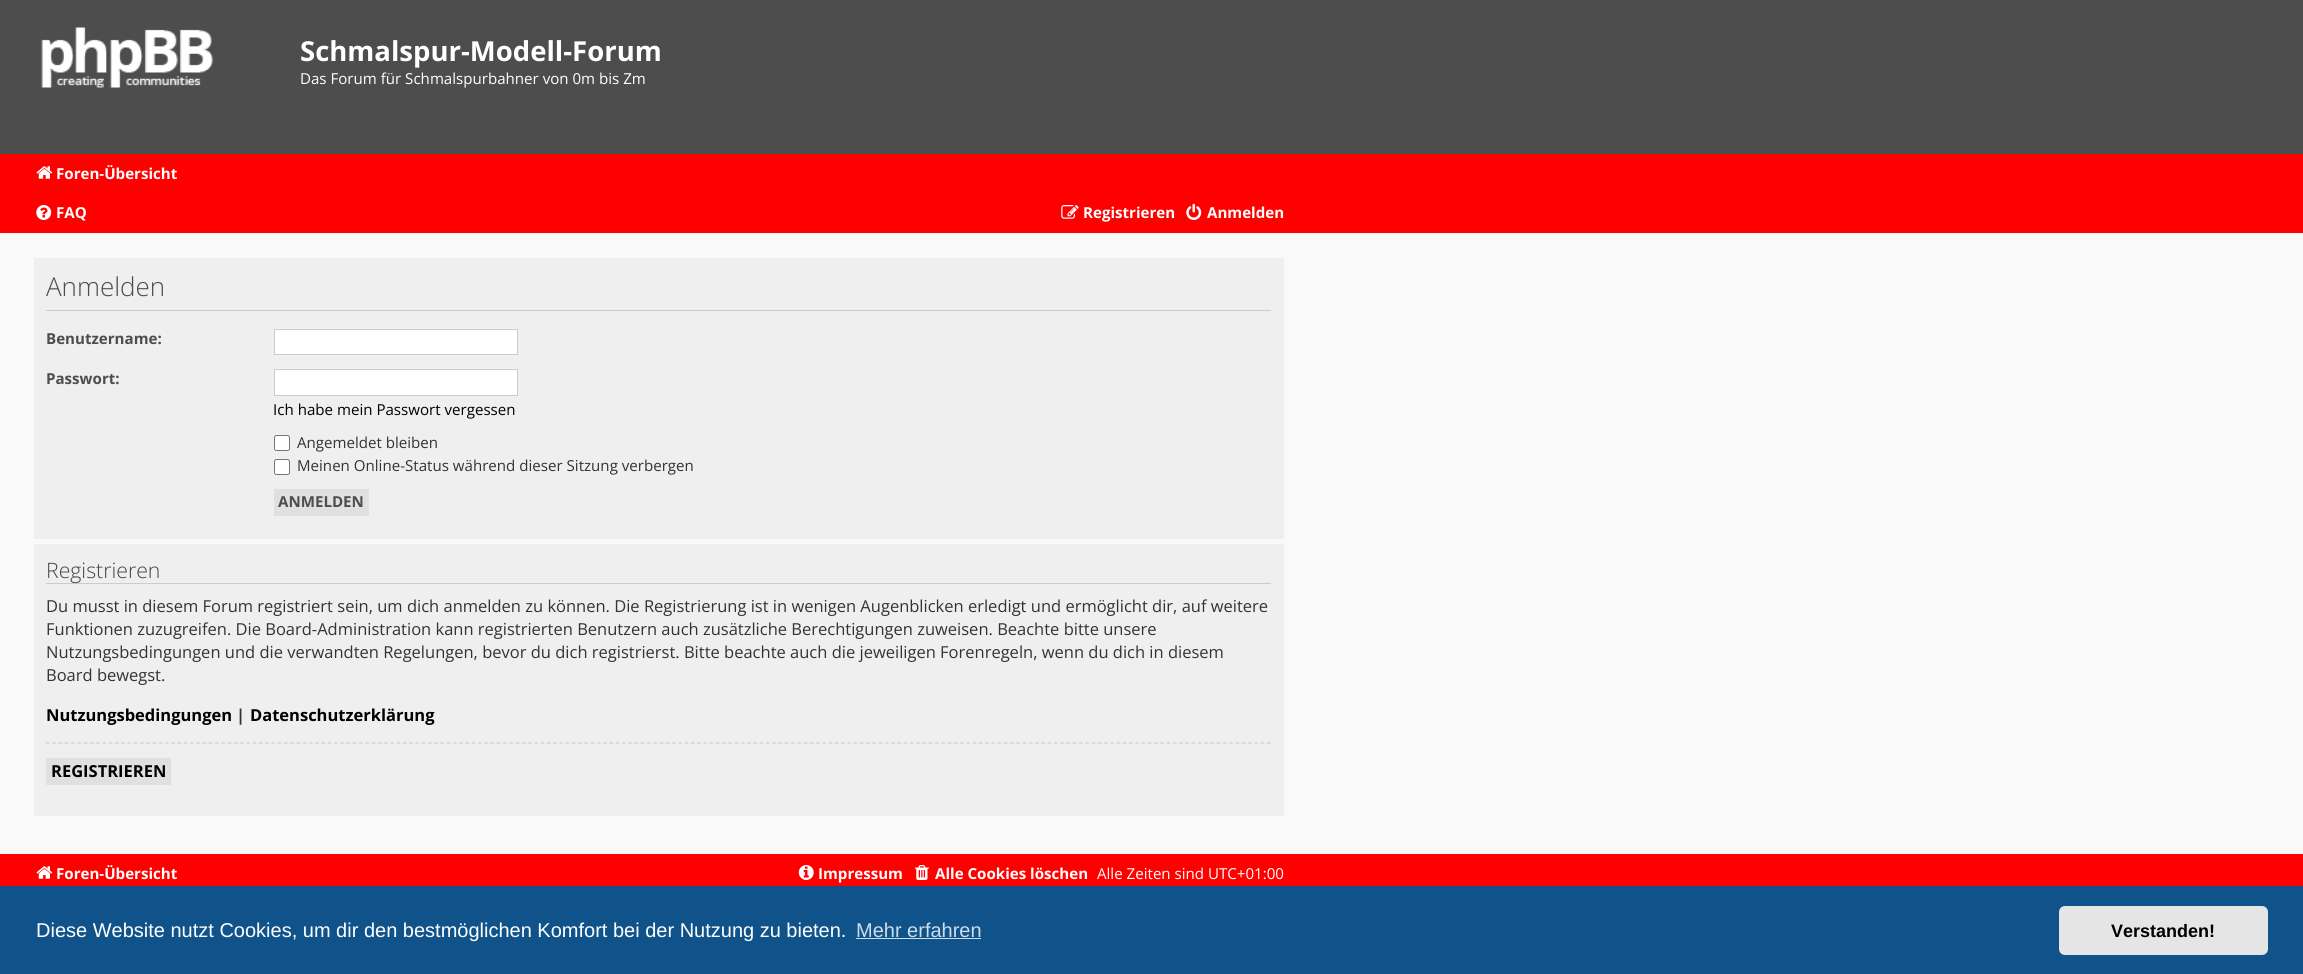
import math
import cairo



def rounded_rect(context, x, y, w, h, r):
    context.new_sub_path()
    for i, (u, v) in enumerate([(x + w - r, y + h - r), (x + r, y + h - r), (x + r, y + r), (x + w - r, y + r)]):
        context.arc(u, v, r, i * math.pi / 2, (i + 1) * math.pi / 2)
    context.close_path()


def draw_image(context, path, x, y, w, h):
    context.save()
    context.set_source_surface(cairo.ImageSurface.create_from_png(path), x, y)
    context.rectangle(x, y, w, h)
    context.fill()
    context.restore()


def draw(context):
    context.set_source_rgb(249 / 255, 249 / 255, 249 / 255)
    context.paint()
    context.set_source_rgb(77 / 255, 77 / 255, 77 / 255)
    context.rectangle(0, 0, 2303, 154)
    context.fill()
    draw_image(context, "images/1.png", 41, 27, 172, 61)
    context.set_source_rgb(1, 0, 0)
    context.rectangle(0, 154, 2303, 79)
    context.fill()
    draw_image(context, "images/2.png", 36, 166, 17, 13)
    draw_image(context, "images/3.png", 36, 205, 16, 15)
    draw_image(context, "images/4.png", 1061, 205, 18, 14)
    draw_image(context, "images/5.png", 1186, 203, 16, 17)
    context.set_source_rgb(239 / 255, 239 / 255, 239 / 255)
    context.rectangle(34, 258, 1250, 281)
    context.fill()
    context.set_source_rgb(204 / 255, 204 / 255, 204 / 255)
    context.rectangle(46, 310, 1225, 1)
    context.fill()
    context.set_source_rgb(1, 1, 1)
    context.rectangle(274.5, 329.5, 243, 25)
    context.fill_preserve()
    context.set_source_rgb(204 / 255, 204 / 255, 204 / 255)
    context.set_line_width(1)
    context.stroke()
    context.set_source_rgb(1, 1, 1)
    context.rectangle(274.5, 369.5, 243, 26)
    context.fill_preserve()
    context.set_source_rgb(204 / 255, 204 / 255, 204 / 255)
    context.stroke()
    context.set_source_rgb(1, 1, 1)
    rounded_rect(context, 274.5, 435.5, 15, 15, 2)
    context.fill_preserve()
    context.set_source_rgb(118 / 255, 118 / 255, 118 / 255)
    context.stroke()
    context.set_source_rgb(1, 1, 1)
    rounded_rect(context, 274.5, 459.5, 15, 15, 2)
    context.fill_preserve()
    context.set_source_rgb(118 / 255, 118 / 255, 118 / 255)
    context.stroke()
    context.set_source_rgb(224 / 255, 224 / 255, 224 / 255)
    context.rectangle(274, 489, 95, 27)
    context.fill()
    context.set_source_rgb(239 / 255, 239 / 255, 239 / 255)
    context.rectangle(34, 544, 1250, 272)
    context.fill()
    context.set_source_rgb(204 / 255, 204 / 255, 204 / 255)
    context.rectangle(46, 583, 1225, 1)
    context.fill()
    context.new_path()
    context.move_to(46, 743)
    context.line_to(1271, 743)
    context.set_line_width(1.2)
    context.set_dash([3.75, 2.51])
    context.stroke()
    context.set_source_rgb(224 / 255, 224 / 255, 224 / 255)
    context.rectangle(46, 758, 125, 27)
    context.fill()
    context.set_source_rgb(1, 0, 0)
    context.rectangle(0, 854, 2303, 32)
    context.fill()
    draw_image(context, "images/2.png", 36, 866, 17, 13)
    draw_image(context, "images/6.png", 798, 865, 16, 15)
    draw_image(context, "images/7.png", 915, 865, 14, 15)
    context.set_source_rgb(15 / 255, 83 / 255, 138 / 255)
    context.rectangle(0, 886, 2303, 88)
    context.fill()
    context.set_source_rgb(207 / 255, 221 / 255, 232 / 255)
    context.rectangle(856, 938, 125, 1)
    context.fill()
    context.set_source_rgb(229 / 255, 229 / 255, 229 / 255)
    rounded_rect(context, 2059, 906, 209, 49, 6)
    context.fill()
    context.select_font_face("Open Sans", cairo.FontSlant.NORMAL, cairo.FontWeight.BOLD)
    context.set_font_size(27.5)
    context.set_source_rgb(1, 1, 1)
    context.move_to(300, 61)
    context.show_text("Schmalspur-Modell-Forum")
    context.select_font_face("Open Sans")
    context.set_font_size(15.1)
    context.move_to(300, 84)
    context.show_text("Das Forum für Schmalspurbahner von 0m bis Zm")
    context.select_font_face("Open Sans", cairo.FontSlant.NORMAL, cairo.FontWeight.BOLD)
    context.move_to(56, 179)
    context.show_text("Foren-Übersicht")
    context.move_to(56, 218)
    context.show_text("FAQ")
    context.move_to(1083, 218)
    context.show_text("Registrieren")
    context.move_to(1207, 218)
    context.show_text("Anmelden")
    context.select_font_face("Open Sans Light")
    context.set_font_size(26)
    context.set_source_rgb(77 / 255, 77 / 255, 77 / 255)
    context.move_to(46, 296)
    context.show_text("Anmelden")
    context.select_font_face("Open Sans", cairo.FontSlant.NORMAL, cairo.FontWeight.BOLD)
    context.set_font_size(15.1)
    context.move_to(46, 344)
    context.show_text("Benutzername:")
    context.move_to(46, 384)
    context.show_text("Passwort:")
    context.select_font_face("Open Sans")
    context.set_source_rgb(0, 0, 0)
    context.move_to(273, 415)
    context.show_text("Ich habe mein Passwort vergessen")
    context.set_source_rgb(51 / 255, 51 / 255, 51 / 255)
    context.move_to(297, 448)
    context.show_text("Angemeldet bleiben")
    context.move_to(297, 471)
    context.show_text("Meinen Online-Status während dieser Sitzung verbergen")
    context.select_font_face("Open Sans", cairo.FontSlant.NORMAL, cairo.FontWeight.BOLD)
    context.set_source_rgb(77 / 255, 77 / 255, 77 / 255)
    context.move_to(278, 507)
    context.show_text("ANMELDEN")
    context.select_font_face("Open Sans Light")
    context.set_font_size(21.25)
    context.set_source_rgb(68 / 255, 68 / 255, 68 / 255)
    context.move_to(46, 578)
    context.show_text("Registrieren")
    context.select_font_face("Open Sans")
    context.set_font_size(16.5)
    context.set_source_rgb(51 / 255, 51 / 255, 51 / 255)
    context.move_to(46, 612)
    context.show_text("Du musst in diesem Forum registriert sein, um dich anmelden zu können. Die Registrierung ist in wenigen Augenblicken erledigt und ermöglicht dir, auf weitere")
    context.move_to(46, 635)
    context.show_text("Funktionen zuzugreifen. Die Board-Administration kann registrierten Benutzern auch zusätzliche Berechtigungen zuweisen. Beachte bitte unsere")
    context.move_to(46, 658)
    context.show_text("Nutzungsbedingungen und die verwandten Regelungen, bevor du dich registrierst. Bitte beachte auch die jeweiligen Forenregeln, wenn du dich in diesem")
    context.move_to(46, 681)
    context.show_text("Board bewegst.")
    context.select_font_face("Open Sans", cairo.FontSlant.NORMAL, cairo.FontWeight.BOLD)
    context.set_source_rgb(0, 0, 0)
    context.move_to(46, 721)
    context.show_text("Nutzungsbedingungen")
    context.set_source_rgb(51 / 255, 51 / 255, 51 / 255)
    context.move_to(236, 721)
    context.show_text("|")
    context.set_source_rgb(0, 0, 0)
    context.move_to(250, 721)
    context.show_text("Datenschutzerklärung")
    context.move_to(51, 777)
    context.show_text("REGISTRIEREN")
    context.set_font_size(15.1)
    context.set_source_rgb(1, 1, 1)
    context.move_to(56, 879)
    context.show_text("Foren-Übersicht")
    context.move_to(818, 879)
    context.show_text("Impressum")
    context.move_to(935, 879)
    context.show_text("Alle Cookies löschen")
    context.select_font_face("Open Sans")
    context.move_to(1097, 879)
    context.show_text("Alle Zeiten sind UTC+01:00")
    context.select_font_face("Liberation Sans")
    context.set_font_size(20)
    context.move_to(36, 937)
    context.show_text("Diese Website nutzt Cookies, um dir den bestmöglichen Komfort bei der Nutzung zu bieten.")
    context.set_source_rgb(207 / 255, 221 / 255, 232 / 255)
    context.move_to(856, 937)
    context.show_text("Mehr erfahren")
    context.select_font_face("Liberation Sans", cairo.FontSlant.NORMAL, cairo.FontWeight.BOLD)
    context.set_font_size(18)
    context.set_source_rgb(0, 0, 0)
    context.move_to(2111, 937)
    context.show_text("Verstanden!")


surface = cairo.ImageSurface(cairo.Format.RGB24, 2303, 974)
context = cairo.Context(surface)
options = cairo.FontOptions()
options.set_hint_metrics(cairo.HintMetrics.OFF)
options.set_hint_style(cairo.HintStyle.NONE)
context.set_font_options(options)
context.set_miter_limit(4)
draw(context)
surface.write_to_png("out.png")
